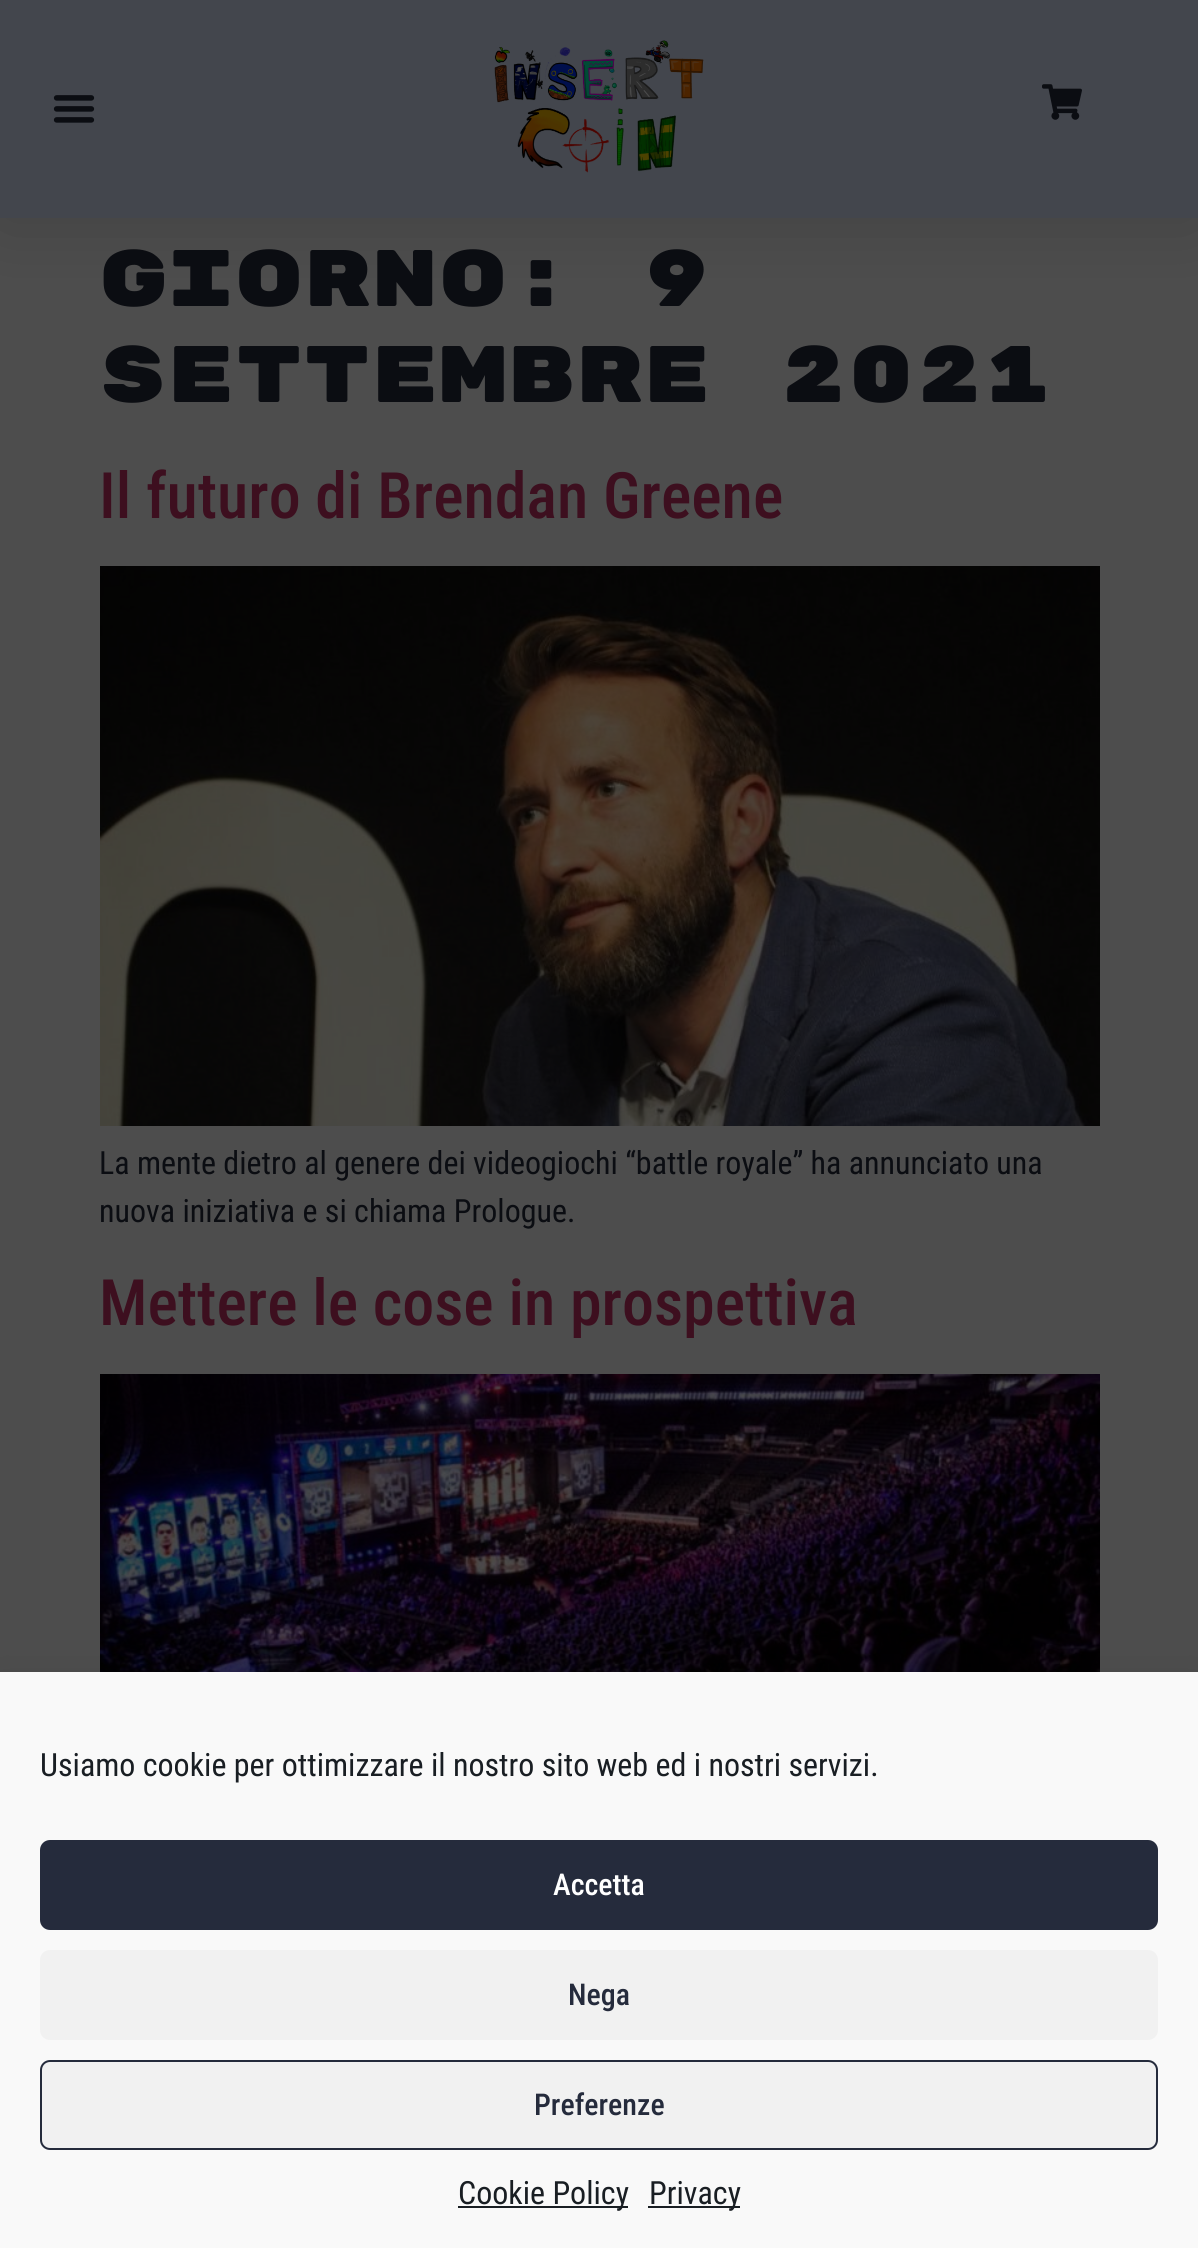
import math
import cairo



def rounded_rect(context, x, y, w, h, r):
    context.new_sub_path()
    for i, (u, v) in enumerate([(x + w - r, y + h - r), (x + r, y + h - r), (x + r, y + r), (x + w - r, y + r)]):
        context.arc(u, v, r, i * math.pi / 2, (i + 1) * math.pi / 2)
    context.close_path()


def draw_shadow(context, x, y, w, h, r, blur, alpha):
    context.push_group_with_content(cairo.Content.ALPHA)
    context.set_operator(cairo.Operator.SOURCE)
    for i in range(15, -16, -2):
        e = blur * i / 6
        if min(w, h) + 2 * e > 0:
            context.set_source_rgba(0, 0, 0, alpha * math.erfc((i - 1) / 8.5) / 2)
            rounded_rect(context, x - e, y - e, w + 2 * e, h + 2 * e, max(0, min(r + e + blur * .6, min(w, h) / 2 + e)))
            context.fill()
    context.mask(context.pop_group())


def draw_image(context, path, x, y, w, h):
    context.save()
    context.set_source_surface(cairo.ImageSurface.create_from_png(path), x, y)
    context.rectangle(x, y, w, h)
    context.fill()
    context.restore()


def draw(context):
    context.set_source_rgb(77 / 255, 77 / 255, 77 / 255)
    context.paint()
    context.set_source_rgb(0, 0, 0)
    draw_shadow(context, 0, 0, 1198, 218, 0, 40, 0.16)
    context.set_source_rgb(67 / 255, 70 / 255, 77 / 255)
    context.rectangle(0, 0, 1198, 218)
    context.fill()
    draw_image(context, "images/1.png", 53, 95, 42, 28)
    draw_image(context, "images/2.png", 494, 40, 210, 133)
    draw_image(context, "images/3.png", 1042, 84, 40, 36)
    draw_image(context, "images/4.png", 100, 566, 1000, 560)
    draw_image(context, "images/5.png", 100, 1374, 1000, 298)
    context.set_source_rgb(0, 0, 0)
    draw_shadow(context, 0, 1692, 1198, 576, 0, 20, 0.19)
    context.set_source_rgb(249 / 255, 249 / 255, 249 / 255)
    context.rectangle(0, 1672, 1198, 576)
    context.fill()
    context.set_source_rgb(37 / 255, 43 / 255, 60 / 255)
    rounded_rect(context, 41, 1841, 1116, 88, 9)
    context.fill_preserve()
    context.stroke()
    context.set_source_rgb(241 / 255, 241 / 255, 241 / 255)
    rounded_rect(context, 40, 1950, 1118, 90, 10)
    context.fill()
    rounded_rect(context, 41, 2061, 1116, 88, 9)
    context.fill_preserve()
    context.set_source_rgb(37 / 255, 43 / 255, 60 / 255)
    context.stroke()
    context.set_source_rgb(25 / 255, 30 / 255, 35 / 255)
    context.rectangle(458, 2206, 170, 2)
    context.fill()
    context.rectangle(648, 2206, 92, 2)
    context.fill()
    context.select_font_face("Rubik Mono One")
    context.set_font_size(80)
    context.set_source_rgb(11 / 255, 13 / 255, 18 / 255)
    context.move_to(99, 306)
    context.show_text("Giorno: 9")
    context.move_to(99, 402)
    context.show_text("Settembre 2021")
    context.select_font_face("Roboto Condensed Medium")
    context.set_font_size(64)
    context.set_source_rgb(61 / 255, 15 / 255, 31 / 255)
    context.move_to(99, 518)
    context.show_text("Il futuro di Brendan Greene")
    context.select_font_face("Roboto Condensed")
    context.set_font_size(32)
    context.set_source_rgb(11 / 255, 13 / 255, 18 / 255)
    context.move_to(99, 1174)
    context.show_text("La mente dietro al genere dei videogiochi “battle royale” ha annunciato una")
    context.move_to(99, 1222)
    context.show_text("nuova iniziativa e si chiama Prologue.")
    context.select_font_face("Roboto Condensed Medium")
    context.set_font_size(64)
    context.set_source_rgb(61 / 255, 15 / 255, 31 / 255)
    context.move_to(99, 1325)
    context.show_text("Mettere le cose in prospettiva")
    context.select_font_face("Roboto Condensed")
    context.set_font_size(32)
    context.set_source_rgb(25 / 255, 30 / 255, 35 / 255)
    context.move_to(40, 1776)
    context.show_text("Usiamo cookie per ottimizzare il nostro sito web ed i nostri servizi.")
    context.select_font_face("Roboto Condensed Medium")
    context.set_font_size(30)
    context.set_source_rgb(1, 1, 1)
    context.move_to(553, 1895)
    context.show_text("Accetta")
    context.set_source_rgb(37 / 255, 43 / 255, 60 / 255)
    context.move_to(568, 2005)
    context.show_text("Nega")
    context.move_to(534, 2115)
    context.show_text("Preferenze")
    context.select_font_face("Roboto Condensed")
    context.set_font_size(32)
    context.set_source_rgb(25 / 255, 30 / 255, 35 / 255)
    context.move_to(458, 2204)
    context.show_text("Cookie Policy")
    context.move_to(649, 2204)
    context.show_text("Privacy")


surface = cairo.ImageSurface(cairo.Format.RGB24, 1198, 2248)
context = cairo.Context(surface)
options = cairo.FontOptions()
options.set_hint_metrics(cairo.HintMetrics.OFF)
options.set_hint_style(cairo.HintStyle.NONE)
context.set_font_options(options)
context.set_miter_limit(4)
draw(context)
surface.write_to_png("out.png")
